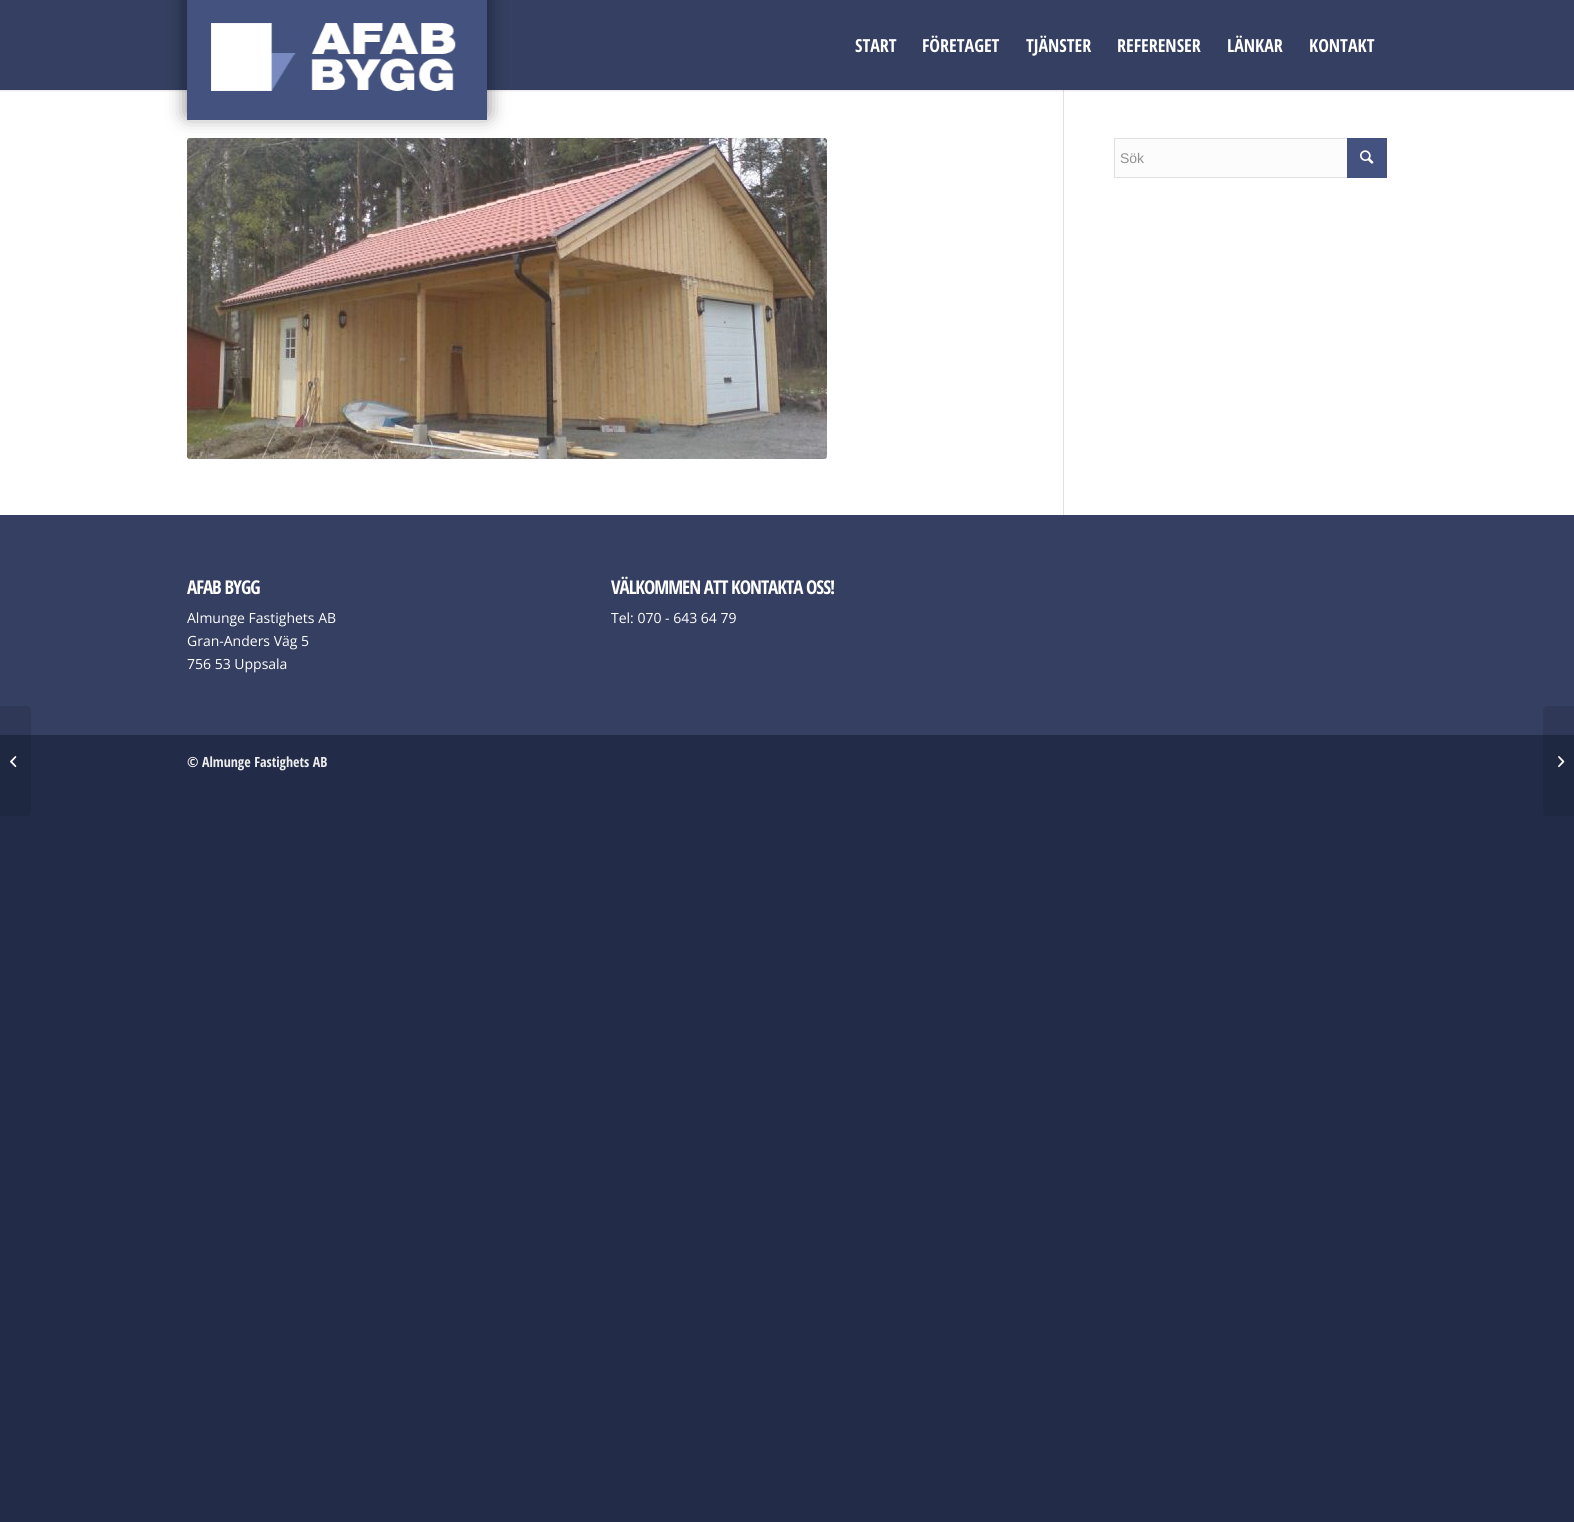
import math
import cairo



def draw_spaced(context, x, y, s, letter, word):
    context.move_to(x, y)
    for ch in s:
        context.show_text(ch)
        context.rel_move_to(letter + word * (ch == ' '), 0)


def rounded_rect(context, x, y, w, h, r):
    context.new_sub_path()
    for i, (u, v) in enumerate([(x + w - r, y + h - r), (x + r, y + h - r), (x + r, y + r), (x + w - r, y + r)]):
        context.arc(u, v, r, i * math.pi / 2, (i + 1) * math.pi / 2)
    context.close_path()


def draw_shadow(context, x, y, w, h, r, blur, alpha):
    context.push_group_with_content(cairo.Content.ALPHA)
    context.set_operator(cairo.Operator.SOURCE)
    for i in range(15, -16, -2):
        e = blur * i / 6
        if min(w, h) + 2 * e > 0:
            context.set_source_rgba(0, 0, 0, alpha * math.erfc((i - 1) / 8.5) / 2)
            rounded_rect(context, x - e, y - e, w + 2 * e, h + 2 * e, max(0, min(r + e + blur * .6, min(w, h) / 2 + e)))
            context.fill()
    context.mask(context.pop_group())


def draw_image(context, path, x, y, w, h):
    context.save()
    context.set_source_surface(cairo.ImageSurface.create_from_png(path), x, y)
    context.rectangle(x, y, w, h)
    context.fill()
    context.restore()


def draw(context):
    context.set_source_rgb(34 / 255, 44 / 255, 72 / 255)
    context.paint()
    context.set_source_rgb(1, 1, 1)
    context.rectangle(0, 90, 1574, 425)
    context.fill()
    context.set_source_rgb(225 / 255, 225 / 255, 225 / 255)
    context.rectangle(1063, 88, 1, 427)
    context.fill()
    context.set_source_rgb(0, 0, 0)
    draw_shadow(context, -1, -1, 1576, 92, 0, 1, 0.1)
    context.set_source_rgb(52 / 255, 63 / 255, 97 / 255)
    context.rectangle(0, 0, 1574, 90)
    context.fill()
    draw_image(context, "images/3.png", 187, 138, 640, 321)
    context.set_source_rgb(0, 0, 0)
    draw_shadow(context, 187, -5, 300, 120, 0, 10, 0.5)
    context.set_source_rgb(68 / 255, 82 / 255, 127 / 255)
    context.rectangle(187, 0, 300, 120)
    context.fill()
    draw_image(context, "images/1.png", 211, 23, 245, 68)
    context.set_source_rgb(52 / 255, 63 / 255, 97 / 255)
    context.rectangle(0, 515, 1574, 220)
    context.fill()
    context.set_source_rgba(0, 0, 0, 0.1)
    context.new_path()
    context.move_to(0, 706)
    context.line_to(27, 706)
    context.curve_to(29, 706, 31, 708, 31, 710)
    context.line_to(31, 812)
    context.curve_to(31, 814, 29, 816, 27, 816)
    context.line_to(0, 816)
    context.close_path()
    context.fill()
    draw_image(context, "images/2.png", 10, 756, 7, 12)
    context.set_source_rgb(252 / 255, 252 / 255, 252 / 255)
    context.rectangle(1115, 139, 232, 38)
    context.fill()
    context.rectangle(1114.5, 138.5, 272, 39)
    context.set_source_rgb(225 / 255, 225 / 255, 225 / 255)
    context.set_line_width(1)
    context.stroke()
    context.set_source_rgb(68 / 255, 82 / 255, 127 / 255)
    context.rectangle(1347, 138, 40, 40)
    context.fill()
    draw_image(context, "images/4.png", 1360, 150, 14, 14)
    context.set_source_rgba(0, 0, 0, 0.1)
    context.new_path()
    context.move_to(1547, 706)
    context.line_to(1574, 706)
    context.line_to(1574, 816)
    context.line_to(1547, 816)
    context.curve_to(1545, 816, 1543, 814, 1543, 812)
    context.line_to(1543, 710)
    context.curve_to(1543, 708, 1545, 706, 1547, 706)
    context.close_path()
    context.fill()
    draw_image(context, "images/5.png", 1558, 756, 7, 12)
    context.select_font_face("Open Sans Condensed", cairo.FontSlant.NORMAL, cairo.FontWeight.BOLD)
    context.set_font_size(18)
    context.set_source_rgb(1, 1, 1)
    context.move_to(855, 52)
    context.show_text("START")
    context.move_to(922, 52)
    context.show_text("FÖRETAGET")
    context.move_to(1026, 52)
    context.show_text("TJÄNSTER")
    context.move_to(1117, 52)
    context.show_text("REFERENSER")
    context.move_to(1227, 52)
    context.show_text("LÄNKAR")
    context.move_to(1309, 52)
    context.show_text("KONTAKT")
    context.select_font_face("Liberation Sans")
    context.set_font_size(14)
    context.set_source_rgb(145 / 255, 145 / 255, 145 / 255)
    context.move_to(1120, 163)
    context.show_text("Sök")
    context.select_font_face("Open Sans Condensed", cairo.FontSlant.NORMAL, cairo.FontWeight.BOLD)
    context.set_font_size(19)
    context.set_source_rgb(1, 1, 1)
    draw_spaced(context, 187, 594, "AFAB BYGG", -1, 0)
    context.select_font_face("Open Sans")
    context.set_font_size(14)
    context.move_to(187, 623)
    context.show_text("Almunge Fastighets AB")
    context.move_to(187, 646)
    context.show_text("Gran-Anders Väg 5")
    context.move_to(187, 669)
    context.show_text("756 53 Uppsala")
    context.select_font_face("Open Sans Condensed", cairo.FontSlant.NORMAL, cairo.FontWeight.BOLD)
    context.set_font_size(19)
    draw_spaced(context, 611, 594, "VÄLKOMMEN ATT KONTAKTA OSS!", -1, 0)
    context.select_font_face("Open Sans")
    context.set_font_size(14)
    context.move_to(611, 623)
    context.show_text("Tel: 070 - 643 64 79")
    context.select_font_face("Open Sans Condensed", cairo.FontSlant.NORMAL, cairo.FontWeight.BOLD)
    context.set_source_rgb(238 / 255, 238 / 255, 238 / 255)
    context.move_to(187, 767)
    context.show_text("© Almunge Fastighets AB")


surface = cairo.ImageSurface(cairo.Format.RGB24, 1574, 1522)
context = cairo.Context(surface)
options = cairo.FontOptions()
options.set_hint_metrics(cairo.HintMetrics.OFF)
options.set_hint_style(cairo.HintStyle.NONE)
context.set_font_options(options)
context.set_miter_limit(4)
draw(context)
surface.write_to_png("out.png")
